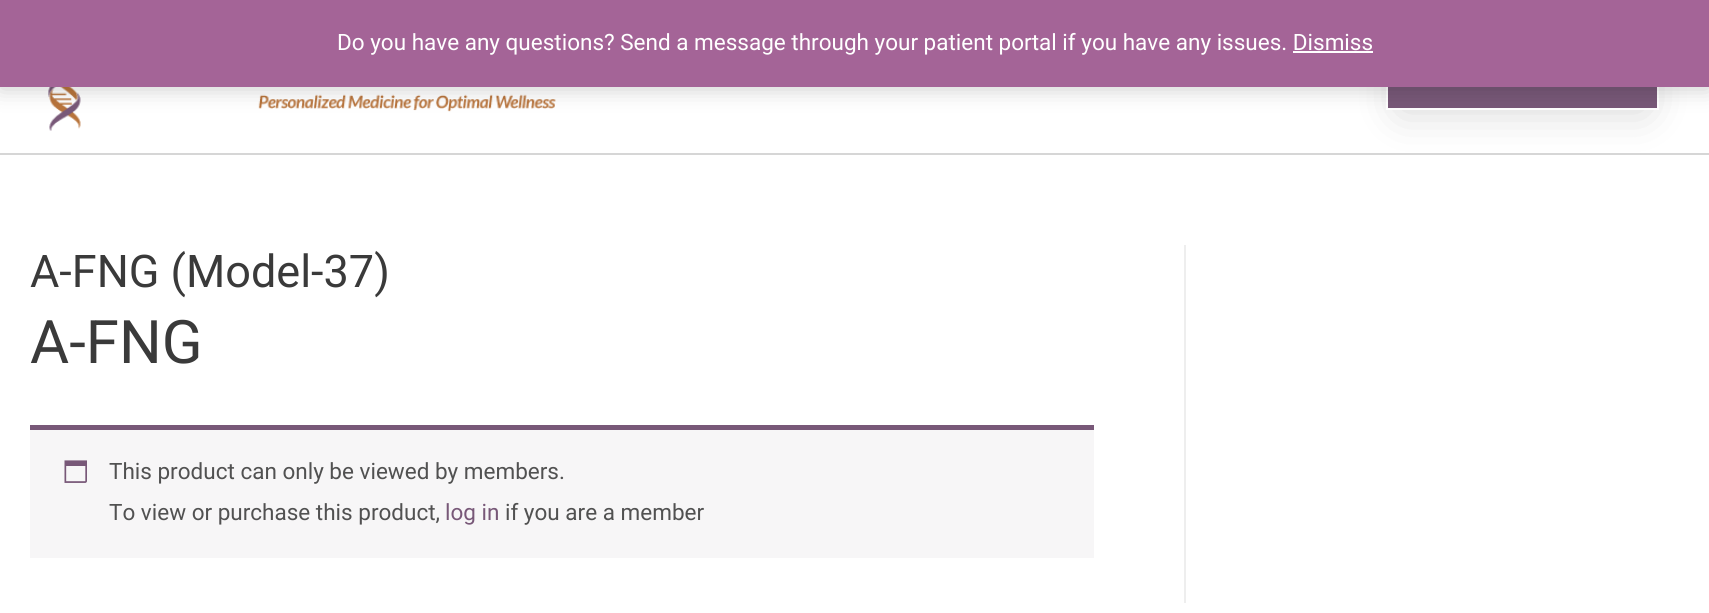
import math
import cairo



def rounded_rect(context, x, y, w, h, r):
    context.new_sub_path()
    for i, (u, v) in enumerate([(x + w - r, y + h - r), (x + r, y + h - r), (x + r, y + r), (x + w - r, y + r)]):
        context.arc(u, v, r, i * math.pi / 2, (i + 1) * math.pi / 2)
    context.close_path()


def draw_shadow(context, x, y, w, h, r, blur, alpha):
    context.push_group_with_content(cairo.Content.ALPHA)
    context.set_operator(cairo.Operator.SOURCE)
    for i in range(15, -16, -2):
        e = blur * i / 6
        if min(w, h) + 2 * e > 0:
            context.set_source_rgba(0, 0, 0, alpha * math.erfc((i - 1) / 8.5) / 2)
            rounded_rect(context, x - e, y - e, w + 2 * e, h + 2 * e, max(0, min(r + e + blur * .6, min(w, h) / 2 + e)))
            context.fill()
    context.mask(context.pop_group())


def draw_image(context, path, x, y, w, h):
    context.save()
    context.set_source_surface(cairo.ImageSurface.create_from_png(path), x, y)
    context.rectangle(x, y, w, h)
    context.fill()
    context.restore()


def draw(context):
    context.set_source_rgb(1, 1, 1)
    context.paint()
    draw_image(context, "images/1.png", 48, 87, 508, 44)
    context.set_source_rgb(214 / 255, 214 / 255, 214 / 255)
    context.rectangle(0, 153, 1709, 2)
    context.fill()
    context.set_source_rgb(0, 0, 0)
    draw_shadow(context, 1400, 74, 246, 37, 0, 22.5, 0.16)
    context.set_source_rgb(120 / 255, 88 / 255, 120 / 255)
    context.rectangle(1388, 87, 269, 21)
    context.fill()
    context.rectangle(1387, 46, 271, 63)
    context.set_source_rgb(1, 1, 1)
    context.stroke()
    context.set_source_rgb(0, 0, 0)
    draw_shadow(context, 0, 2, 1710, 87, 0, 11, 0.2)
    context.set_source_rgb(164 / 255, 100 / 255, 151 / 255)
    context.rectangle(0, 0, 1709, 87)
    context.fill()
    context.set_source_rgb(1, 1, 1)
    context.rectangle(1293, 51, 80, 2)
    context.fill()
    context.set_source_rgb(238 / 255, 238 / 255, 238 / 255)
    context.rectangle(1184, 245, 2, 358)
    context.fill()
    context.set_source_rgb(247 / 255, 246 / 255, 247 / 255)
    context.rectangle(30, 430, 1064, 128)
    context.fill()
    context.set_source_rgb(120 / 255, 88 / 255, 120 / 255)
    context.rectangle(30, 425, 1064, 5)
    context.fill()
    draw_image(context, "images/2.png", 64, 460, 23, 23)
    context.select_font_face("Roboto")
    context.set_font_size(22.5)
    context.set_source_rgb(1, 1, 1)
    context.move_to(337, 50)
    context.show_text("Do you have any questions? Send a message through your patient portal if you have any issues. Dismiss")
    context.set_font_size(45)
    context.set_source_rgb(58 / 255, 58 / 255, 58 / 255)
    context.move_to(30, 287)
    context.show_text("A-FNG (Model-37)")
    context.set_font_size(60)
    context.move_to(30, 363)
    context.show_text("A-FNG")
    context.set_font_size(22.5)
    context.set_source_rgb(81 / 255, 81 / 255, 81 / 255)
    context.move_to(109, 479)
    context.show_text("This product can only be viewed by members.")
    context.move_to(109, 520)
    context.show_text("To view or purchase this product,")
    context.set_source_rgb(120 / 255, 88 / 255, 120 / 255)
    context.move_to(445, 520)
    context.show_text("log in")
    context.set_source_rgb(81 / 255, 81 / 255, 81 / 255)
    context.move_to(505, 520)
    context.show_text("if you are a member")


surface = cairo.ImageSurface(cairo.Format.RGB24, 1709, 613)
context = cairo.Context(surface)
options = cairo.FontOptions()
options.set_hint_metrics(cairo.HintMetrics.OFF)
options.set_hint_style(cairo.HintStyle.NONE)
context.set_font_options(options)
context.set_miter_limit(4)
draw(context)
surface.write_to_png("out.png")
